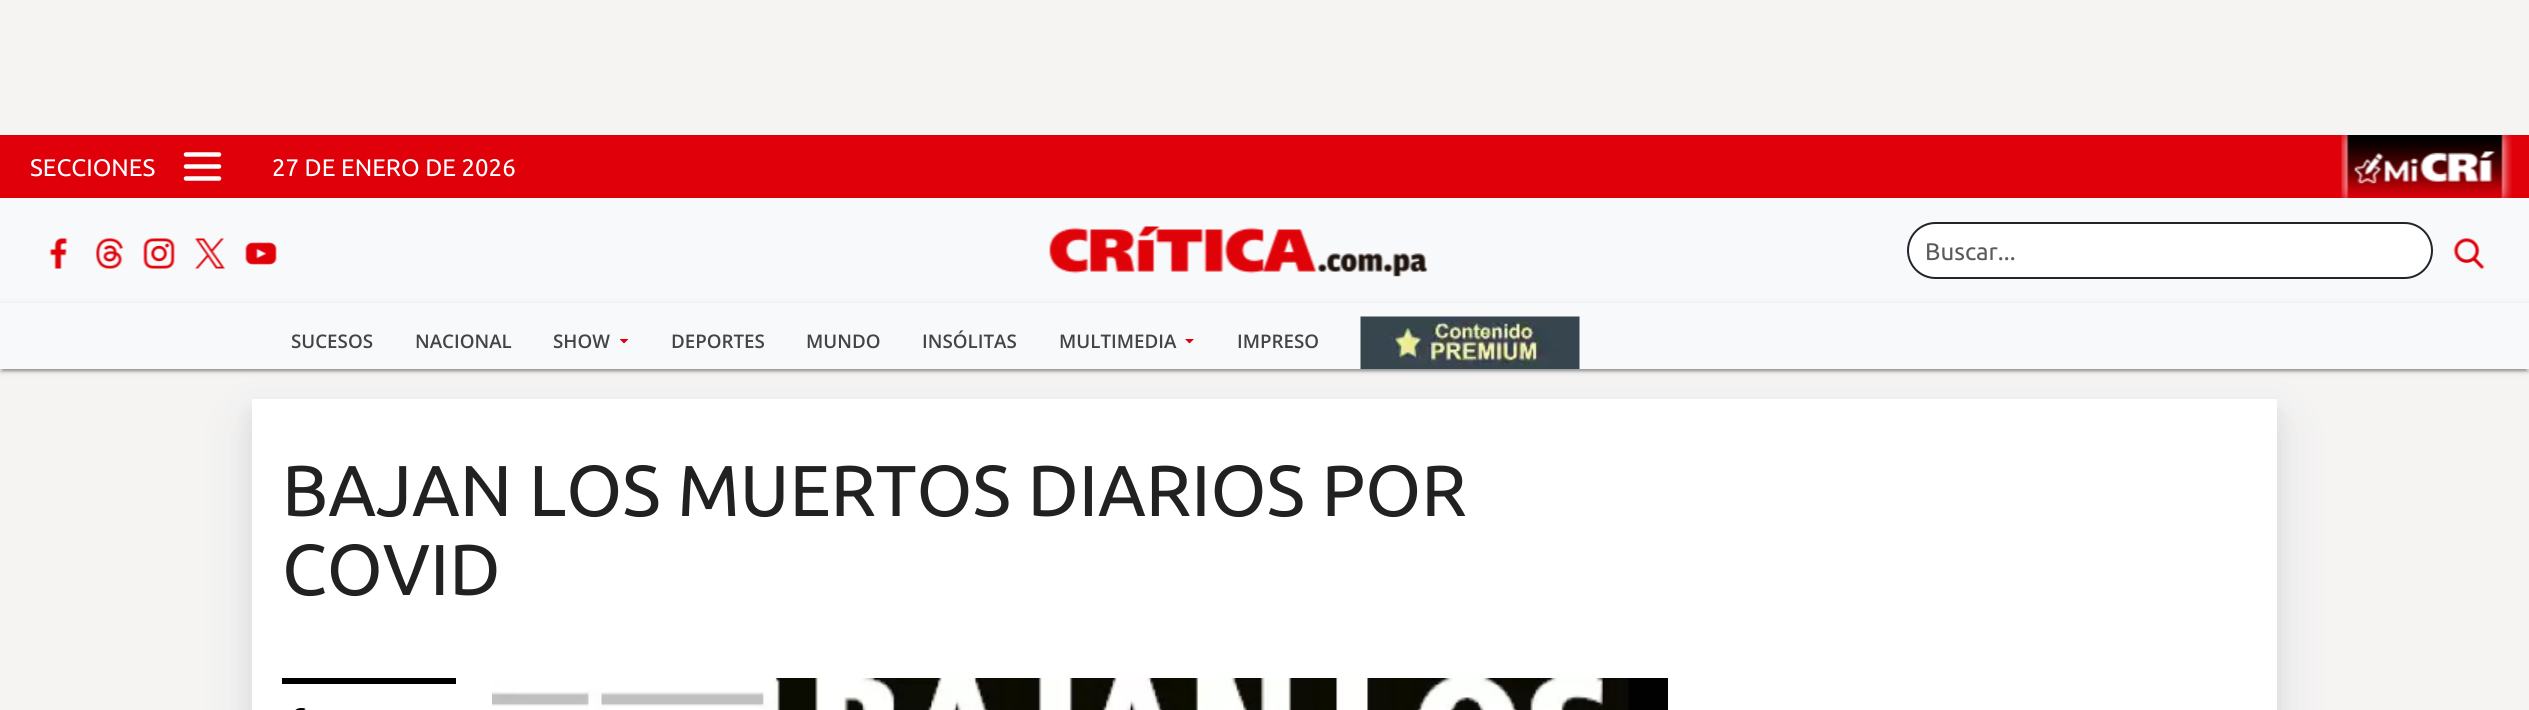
import math
import cairo



def rounded_rect(context, x, y, w, h, r):
    context.new_sub_path()
    for i, (u, v) in enumerate([(x + w - r, y + h - r), (x + r, y + h - r), (x + r, y + r), (x + w - r, y + r)]):
        context.arc(u, v, r, i * math.pi / 2, (i + 1) * math.pi / 2)
    context.close_path()


def draw_shadow(context, x, y, w, h, r, blur, alpha):
    context.push_group_with_content(cairo.Content.ALPHA)
    context.set_operator(cairo.Operator.SOURCE)
    for i in range(15, -16, -2):
        e = blur * i / 6
        if min(w, h) + 2 * e > 0:
            context.set_source_rgba(0, 0, 0, alpha * math.erfc((i - 1) / 8.5) / 2)
            rounded_rect(context, x - e, y - e, w + 2 * e, h + 2 * e, max(0, min(r + e + blur * .6, min(w, h) / 2 + e)))
            context.fill()
    context.mask(context.pop_group())


def draw_image(context, path, x, y, w, h):
    context.save()
    context.set_source_surface(cairo.ImageSurface.create_from_png(path), x, y)
    context.rectangle(x, y, w, h)
    context.fill()
    context.restore()


def draw(context):
    context.set_source_rgb(245 / 255, 244 / 255, 243 / 255)
    context.paint()
    context.set_source_rgb(50 / 255, 50 / 255, 93 / 255)
    draw_shadow(context, 252, 426, 2025, 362, 0, 26, 0.1)
    context.set_source_rgb(248 / 255, 249 / 255, 250 / 255)
    context.rectangle(0, 198, 2529, 171)
    context.fill()
    context.set_source_rgb(223 / 255, 0, 9 / 255)
    context.rectangle(0, 135, 2529, 63)
    context.fill()
    context.new_path()
    context.move_to(186, 154.5)
    context.line_to(219, 154.5)
    context.move_to(186, 166.5)
    context.line_to(219, 166.5)
    context.move_to(186, 178.5)
    context.line_to(219, 178.5)
    context.set_source_rgb(1, 1, 1)
    context.set_line_width(4.5)
    context.set_line_cap(cairo.LineCap.ROUND)
    context.stroke()
    draw_image(context, "images/1.png", 2341, 135, 171, 63)
    draw_image(context, "images/2.png", 49, 238, 19, 31)
    draw_image(context, "images/3.png", 95, 238, 29, 31)
    draw_image(context, "images/4.png", 143, 238, 32, 31)
    draw_image(context, "images/5.png", 194, 238, 32, 31)
    draw_image(context, "images/6.png", 245, 242, 32, 23)
    draw_image(context, "images/7.png", 1049, 226, 379, 51)
    rounded_rect(context, 1908, 223, 524, 55, 27.5)
    context.fill_preserve()
    context.set_source_rgb(33 / 255, 37 / 255, 41 / 255)
    context.set_line_width(2)
    context.set_line_cap(cairo.LineCap.BUTT)
    context.stroke()
    draw_image(context, "images/8.png", 2453, 238, 32, 31)
    context.save()
    context.rectangle(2, 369, 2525, 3)
    context.clip()
    context.set_source_rgb(0, 0, 0)
    draw_shadow(context, 3, 311, 2523, 60, 0, 1, 0.2)
    context.restore()
    context.save()
    context.set_fill_rule(cairo.FillRule.EVEN_ODD)
    context.new_path()
    context.move_to(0, 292)
    context.line_to(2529, 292)
    context.line_to(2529, 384)
    context.line_to(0, 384)
    context.close_path()
    context.move_to(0, 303)
    context.line_to(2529, 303)
    context.line_to(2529, 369)
    context.line_to(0, 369)
    context.close_path()
    context.clip()
    context.set_source_rgb(0, 0, 0)
    draw_shadow(context, 0, 305, 2529, 66, 0, 4, 0.12)
    context.restore()
    context.save()
    context.rectangle(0, 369, 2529, 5)
    context.clip()
    context.set_source_rgb(0, 0, 0)
    draw_shadow(context, 0, 306, 2529, 66, 0, 1.5, 0.14)
    context.restore()
    context.set_source_rgb(223 / 255, 0, 9 / 255)
    context.new_path()
    context.move_to(619.5, 339)
    context.line_to(628.5, 339)
    context.line_to(624, 343.5)
    context.close_path()
    context.fill()
    context.new_path()
    context.move_to(1185, 339)
    context.line_to(1194, 339)
    context.line_to(1189.5, 343.5)
    context.close_path()
    context.fill()
    draw_image(context, "images/9.png", 1360, 316, 220, 53)
    context.set_source_rgb(0, 0, 0)
    draw_shadow(context, 252, 411, 2025, 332, 0, 11, 0.07)
    context.set_source_rgb(1, 1, 1)
    context.rectangle(252, 399, 2025, 311)
    context.fill()
    context.set_source_rgb(0, 0, 0)
    context.rectangle(282, 678, 174, 6)
    context.fill()
    draw_image(context, "images/10.png", 295, 708, 11, 2)
    draw_image(context, "images/11.png", 492, 678, 1176, 32)
    context.select_font_face("Ubuntu")
    context.set_font_size(24)
    context.set_source_rgb(1, 1, 1)
    context.move_to(30, 176)
    context.show_text("SECCIONES")
    context.move_to(272, 176)
    context.show_text("27 DE ENERO DE 2026")
    context.set_source_rgb(89 / 255, 92 / 255, 95 / 255)
    context.move_to(1925, 260)
    context.show_text("Buscar...")
    context.select_font_face("Open Sans SemiBold")
    context.set_font_size(18.75)
    context.set_source_rgb(68 / 255, 68 / 255, 68 / 255)
    context.move_to(291, 348)
    context.show_text("SUCESOS")
    context.move_to(415, 348)
    context.show_text("NACIONAL")
    context.move_to(553, 348)
    context.show_text("SHOW")
    context.move_to(671, 348)
    context.show_text("DEPORTES")
    context.move_to(806, 348)
    context.show_text("MUNDO")
    context.move_to(922, 348)
    context.show_text("INSÓLITAS")
    context.move_to(1059, 348)
    context.show_text("MULTIMEDIA")
    context.move_to(1237, 348)
    context.show_text("IMPRESO")
    context.select_font_face("Ubuntu")
    context.set_font_size(72)
    context.set_source_rgb(33 / 255, 33 / 255, 33 / 255)
    context.move_to(282, 516)
    context.show_text("BAJAN LOS MUERTOS DIARIOS POR")
    context.move_to(282, 595)
    context.show_text("COVID")


surface = cairo.ImageSurface(cairo.Format.RGB24, 2529, 710)
context = cairo.Context(surface)
options = cairo.FontOptions()
options.set_hint_metrics(cairo.HintMetrics.OFF)
options.set_hint_style(cairo.HintStyle.NONE)
context.set_font_options(options)
context.set_miter_limit(4)
draw(context)
surface.write_to_png("out.png")
